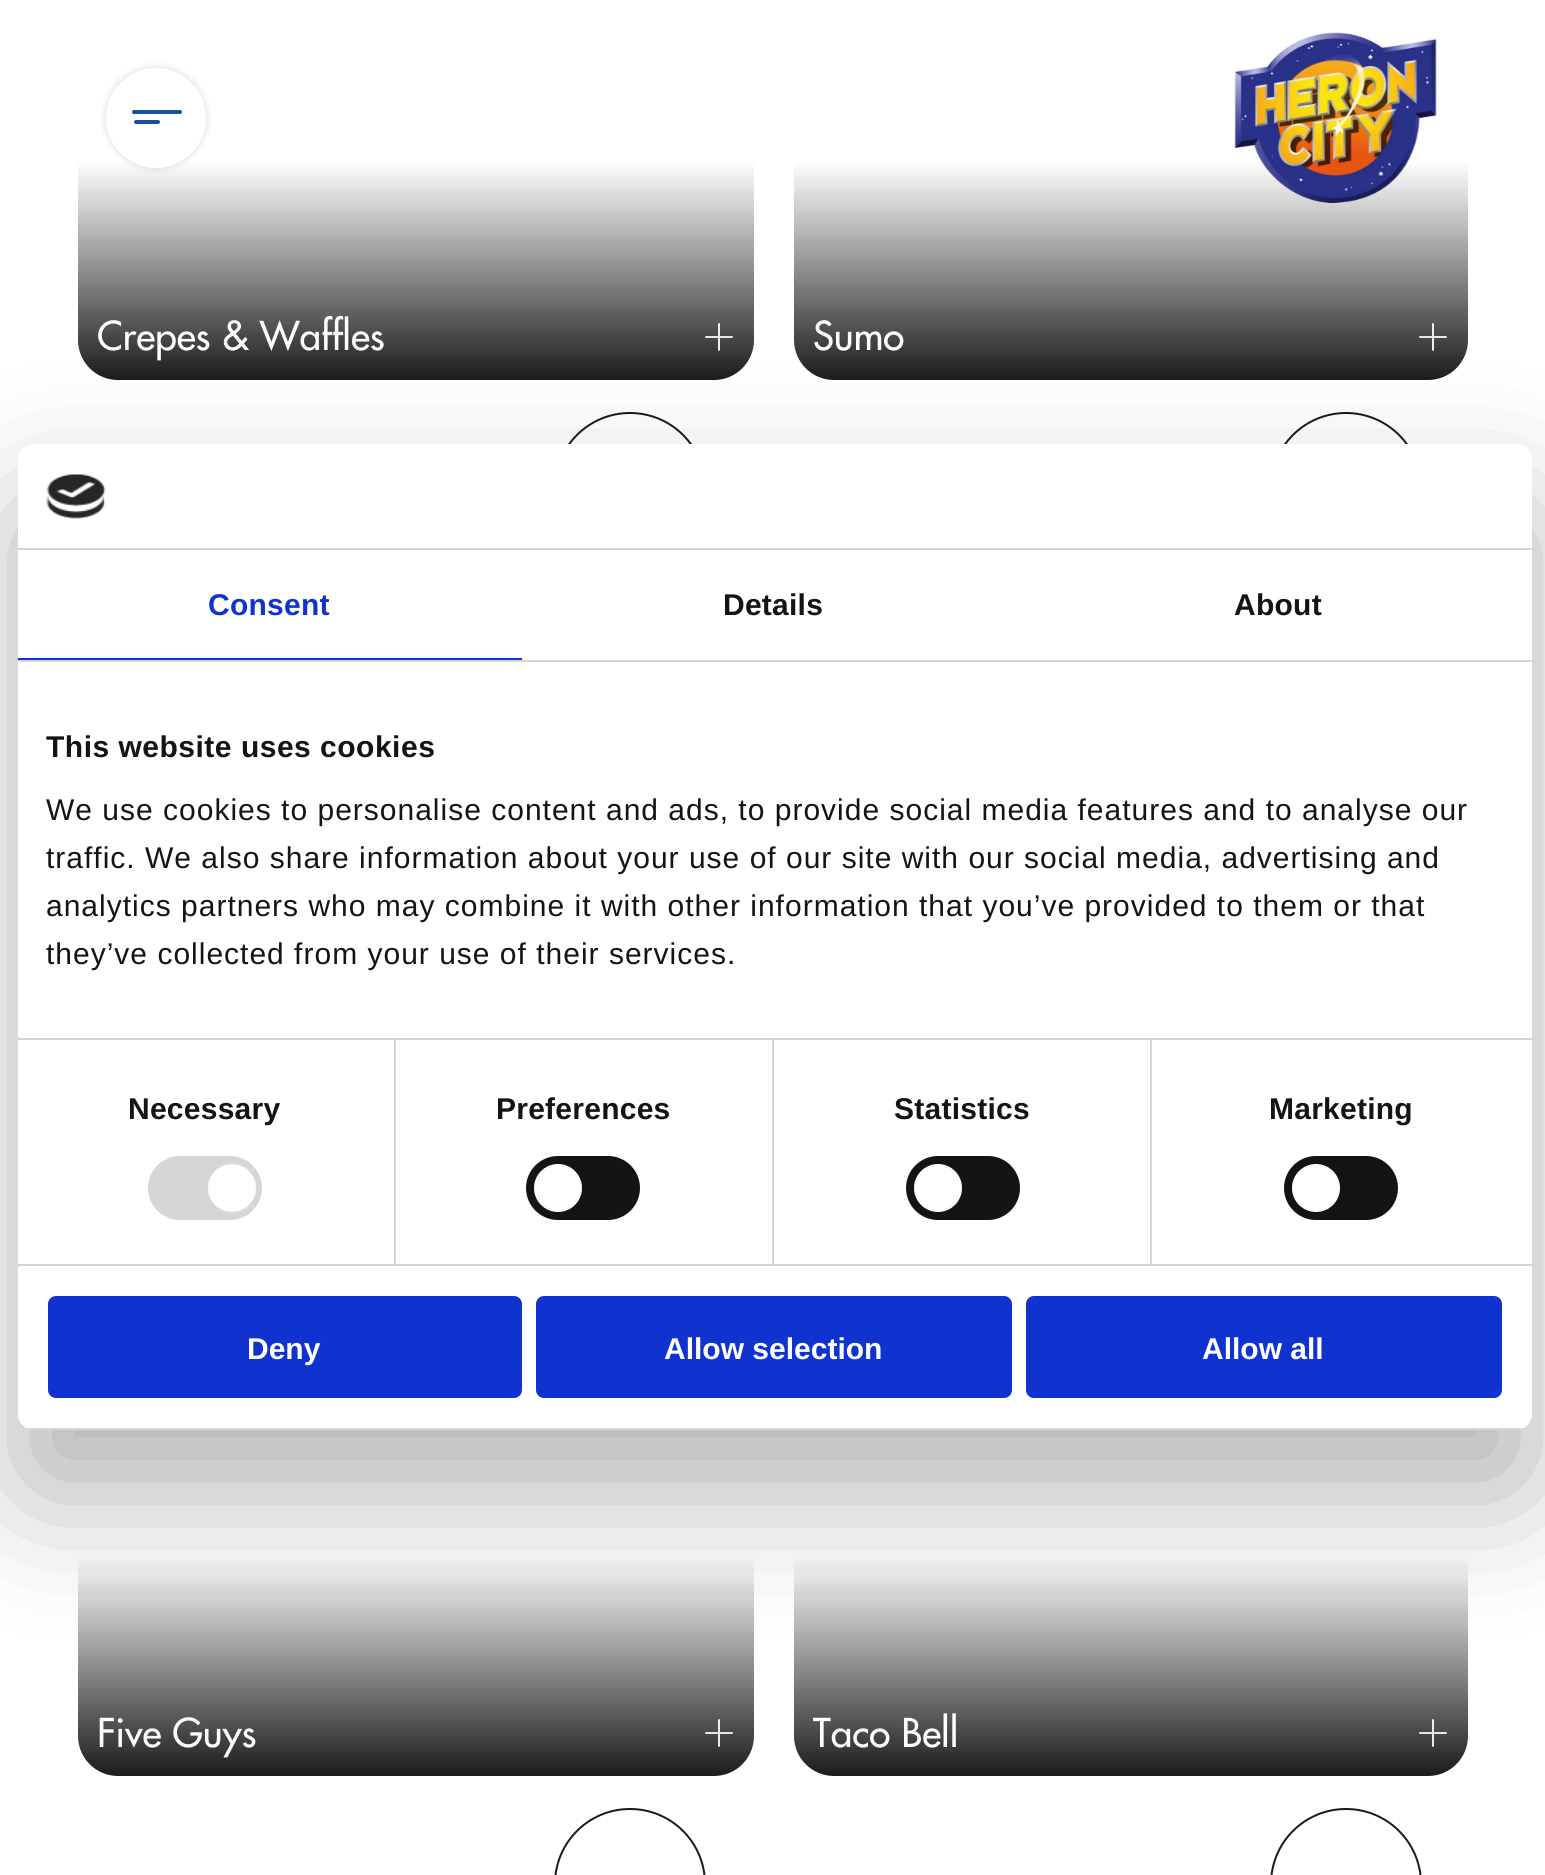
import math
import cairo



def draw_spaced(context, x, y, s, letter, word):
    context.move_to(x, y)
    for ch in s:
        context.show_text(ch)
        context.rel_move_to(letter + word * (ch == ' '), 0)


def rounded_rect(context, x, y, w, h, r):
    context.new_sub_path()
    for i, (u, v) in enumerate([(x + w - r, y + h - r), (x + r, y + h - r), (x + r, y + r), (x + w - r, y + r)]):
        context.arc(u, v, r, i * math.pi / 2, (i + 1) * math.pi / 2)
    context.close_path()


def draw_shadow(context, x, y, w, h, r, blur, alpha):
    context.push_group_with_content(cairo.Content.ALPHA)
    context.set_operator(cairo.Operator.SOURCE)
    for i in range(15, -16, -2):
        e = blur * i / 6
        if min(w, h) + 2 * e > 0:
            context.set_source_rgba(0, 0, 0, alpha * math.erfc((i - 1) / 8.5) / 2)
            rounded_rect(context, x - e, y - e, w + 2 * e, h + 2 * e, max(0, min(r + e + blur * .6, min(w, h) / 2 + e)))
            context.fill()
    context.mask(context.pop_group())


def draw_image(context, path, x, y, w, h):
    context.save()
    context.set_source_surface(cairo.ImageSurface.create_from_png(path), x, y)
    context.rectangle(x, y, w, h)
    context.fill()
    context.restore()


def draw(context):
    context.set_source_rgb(1, 1, 1)
    context.paint()
    gradient = cairo.LinearGradient(416, -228, 416, 380)
    gradient.add_color_stop_rgba(0.64, 1, 1, 1, 1)
    gradient.add_color_stop_rgba(1, 27 / 255, 27 / 255, 27 / 255, 1)
    context.set_source(gradient)
    rounded_rect(context, 78, -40, 676, 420, 40)
    context.fill()
    context.set_source_rgb(0, 0, 0)
    draw_shadow(context, 106, 68, 100, 100, 50, 4, 0.15)
    context.set_source_rgb(1, 1, 1)
    context.arc(156, 118, 50, 0, 2 * math.pi)
    context.fill()
    context.set_source_rgb(22 / 255, 82 / 255, 161 / 255)
    rounded_rect(context, 132, 110, 50, 4, 2)
    context.fill()
    rounded_rect(context, 134, 120, 26, 4, 2)
    context.fill()
    gradient = cairo.LinearGradient(1131, -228, 1131, 380)
    gradient.add_color_stop_rgba(0.64, 1, 1, 1, 1)
    gradient.add_color_stop_rgba(1, 27 / 255, 27 / 255, 27 / 255, 1)
    context.set_source(gradient)
    rounded_rect(context, 794, -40, 674, 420, 40)
    context.fill()
    draw_image(context, "images/1.png", 1234, 32, 203, 171)
    context.new_path()
    context.move_to(719, 324)
    context.line_to(719, 350)
    context.move_to(732, 337)
    context.line_to(706, 337)
    context.set_source_rgb(1, 1, 1)
    context.set_line_width(1.8)
    context.set_line_cap(cairo.LineCap.ROUND)
    context.stroke()
    context.new_path()
    context.move_to(1433, 324)
    context.line_to(1433, 350)
    context.move_to(1446, 337)
    context.line_to(1420, 337)
    context.stroke()
    context.arc(630, 488, 75, 0, 2 * math.pi)
    context.set_source_rgb(27 / 255, 27 / 255, 27 / 255)
    context.set_line_width(2)
    context.set_line_cap(cairo.LineCap.BUTT)
    context.stroke()
    context.arc(1346, 488, 75, 0, 2 * math.pi)
    context.stroke()
    gradient = cairo.LinearGradient(416, 1168, 416, 1776)
    gradient.add_color_stop_rgba(0.64, 1, 1, 1, 1)
    gradient.add_color_stop_rgba(1, 27 / 255, 27 / 255, 27 / 255, 1)
    context.set_source(gradient)
    rounded_rect(context, 78, 1168, 676, 608, 40)
    context.fill()
    context.new_path()
    context.move_to(719, 1720)
    context.line_to(719, 1746)
    context.move_to(732, 1733)
    context.line_to(706, 1733)
    context.set_source_rgb(1, 1, 1)
    context.set_line_width(1.8)
    context.set_line_cap(cairo.LineCap.ROUND)
    context.stroke()
    gradient = cairo.LinearGradient(1131, 1168, 1131, 1776)
    gradient.add_color_stop_rgba(0.64, 1, 1, 1, 1)
    gradient.add_color_stop_rgba(1, 27 / 255, 27 / 255, 27 / 255, 1)
    context.set_source(gradient)
    rounded_rect(context, 794, 1168, 674, 608, 40)
    context.fill()
    context.new_path()
    context.move_to(1433, 1720)
    context.line_to(1433, 1746)
    context.move_to(1446, 1733)
    context.line_to(1420, 1733)
    context.set_source_rgb(1, 1, 1)
    context.stroke()
    rounded_rect(context, 555, 1809, 150, 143, 75)
    context.set_source_rgb(27 / 255, 27 / 255, 27 / 255)
    context.set_line_width(2)
    context.set_line_cap(cairo.LineCap.BUTT)
    context.stroke()
    rounded_rect(context, 1271, 1809, 150, 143, 75)
    context.stroke()
    context.set_source_rgb(0, 0, 0)
    draw_shadow(context, 18, 508, 1514, 986, 16, 68, 0.3)
    context.set_source_rgb(1, 1, 1)
    rounded_rect(context, 18, 444, 1514, 986, 16)
    context.fill()
    context.set_source_rgb(214 / 255, 214 / 255, 214 / 255)
    context.rectangle(18, 548, 1514, 2)
    context.fill()
    draw_image(context, "images/2.png", 46, 474, 60, 45)
    context.rectangle(18, 660, 1514, 2)
    context.fill()
    context.set_source_rgb(16 / 255, 50 / 255, 207 / 255)
    context.rectangle(18, 658, 504, 2)
    context.fill()
    context.set_source_rgb(214 / 255, 214 / 255, 214 / 255)
    context.rectangle(18, 1038, 1514, 2)
    context.fill()
    context.rectangle(18, 1264, 1514, 2)
    context.fill()
    context.rectangle(394, 1040, 2, 224)
    context.fill()
    rounded_rect(context, 148, 1156, 114, 64, 32)
    context.fill()
    context.set_source_rgb(1, 1, 1)
    context.arc(232, 1188, 24, 0, 2 * math.pi)
    context.fill()
    context.set_source_rgb(214 / 255, 214 / 255, 214 / 255)
    context.rectangle(772, 1040, 2, 224)
    context.fill()
    context.set_source_rgb(20 / 255, 20 / 255, 20 / 255)
    rounded_rect(context, 526, 1156, 114, 64, 32)
    context.fill()
    context.set_source_rgb(1, 1, 1)
    context.arc(558, 1188, 24, 0, 2 * math.pi)
    context.fill()
    context.set_source_rgb(214 / 255, 214 / 255, 214 / 255)
    context.rectangle(1150, 1040, 2, 224)
    context.fill()
    context.set_source_rgb(20 / 255, 20 / 255, 20 / 255)
    rounded_rect(context, 906, 1156, 114, 64, 32)
    context.fill()
    context.set_source_rgb(1, 1, 1)
    context.arc(938, 1188, 24, 0, 2 * math.pi)
    context.fill()
    context.set_source_rgb(20 / 255, 20 / 255, 20 / 255)
    rounded_rect(context, 1284, 1156, 114, 64, 32)
    context.fill()
    context.set_source_rgb(1, 1, 1)
    context.arc(1316, 1188, 24, 0, 2 * math.pi)
    context.fill()
    context.save()
    rounded_rect(context, 18, 444, 1514, 986, 16)
    context.clip()
    context.set_source_rgb(214 / 255, 214 / 255, 214 / 255)
    context.rectangle(18, 1428, 1514, 2)
    context.fill()
    context.restore()
    context.set_source_rgb(16 / 255, 50 / 255, 207 / 255)
    rounded_rect(context, 50, 1298, 470, 98, 6)
    context.fill_preserve()
    context.set_line_width(4)
    context.stroke()
    rounded_rect(context, 538, 1298, 472, 98, 6)
    context.fill_preserve()
    context.stroke()
    rounded_rect(context, 1028, 1298, 472, 98, 6)
    context.fill_preserve()
    context.stroke()
    context.select_font_face("Futura Medium")
    context.set_font_size(38.75)
    context.set_source_rgb(1, 1, 1)
    context.move_to(97, 350)
    context.show_text("Crepes & Waffles")
    context.move_to(813, 350)
    context.show_text("Sumo")
    context.move_to(97, 1747)
    context.show_text("Five Guys")
    context.move_to(813, 1747)
    context.show_text("Taco Bell")
    context.select_font_face("Liberation Sans", cairo.FontSlant.NORMAL, cairo.FontWeight.BOLD)
    context.set_font_size(30)
    context.set_source_rgb(16 / 255, 50 / 255, 207 / 255)
    draw_spaced(context, 208, 615, "Consent", 0.25, 0)
    context.set_source_rgb(20 / 255, 20 / 255, 20 / 255)
    draw_spaced(context, 723, 615, "Details", 0.25, 0)
    draw_spaced(context, 1234, 615, "About", 0.25, 0)
    draw_spaced(context, 46, 757, "This website uses cookies", 0.5, 0)
    context.select_font_face("Liberation Sans")
    draw_spaced(context, 46, 820, "We use cookies to personalise content and ads, to provide social media features and to analyse our", 1, 0)
    draw_spaced(context, 46, 868, "traffic. We also share information about your use of our site with our social media, advertising and", 1, 0)
    draw_spaced(context, 46, 916, "analytics partners who may combine it with other information that you’ve provided to them or that", 1, 0)
    draw_spaced(context, 46, 964, "they’ve collected from your use of their services.", 1, 0)
    context.select_font_face("Liberation Sans", cairo.FontSlant.NORMAL, cairo.FontWeight.BOLD)
    draw_spaced(context, 128, 1119, "Necessary", 0.25, 0)
    draw_spaced(context, 496, 1119, "Preferences", 0.25, 0)
    draw_spaced(context, 894, 1119, "Statistics", 0.25, 0)
    draw_spaced(context, 1269, 1119, "Marketing", 0.25, 0)
    context.set_source_rgb(1, 1, 1)
    context.move_to(247, 1359)
    context.show_text("Deny")
    context.move_to(664, 1359)
    context.show_text("Allow selection")
    context.move_to(1202, 1359)
    context.show_text("Allow all")


surface = cairo.ImageSurface(cairo.Format.RGB24, 1545, 1875)
context = cairo.Context(surface)
options = cairo.FontOptions()
options.set_hint_metrics(cairo.HintMetrics.OFF)
options.set_hint_style(cairo.HintStyle.NONE)
context.set_font_options(options)
context.set_miter_limit(4)
draw(context)
surface.write_to_png("out.png")
